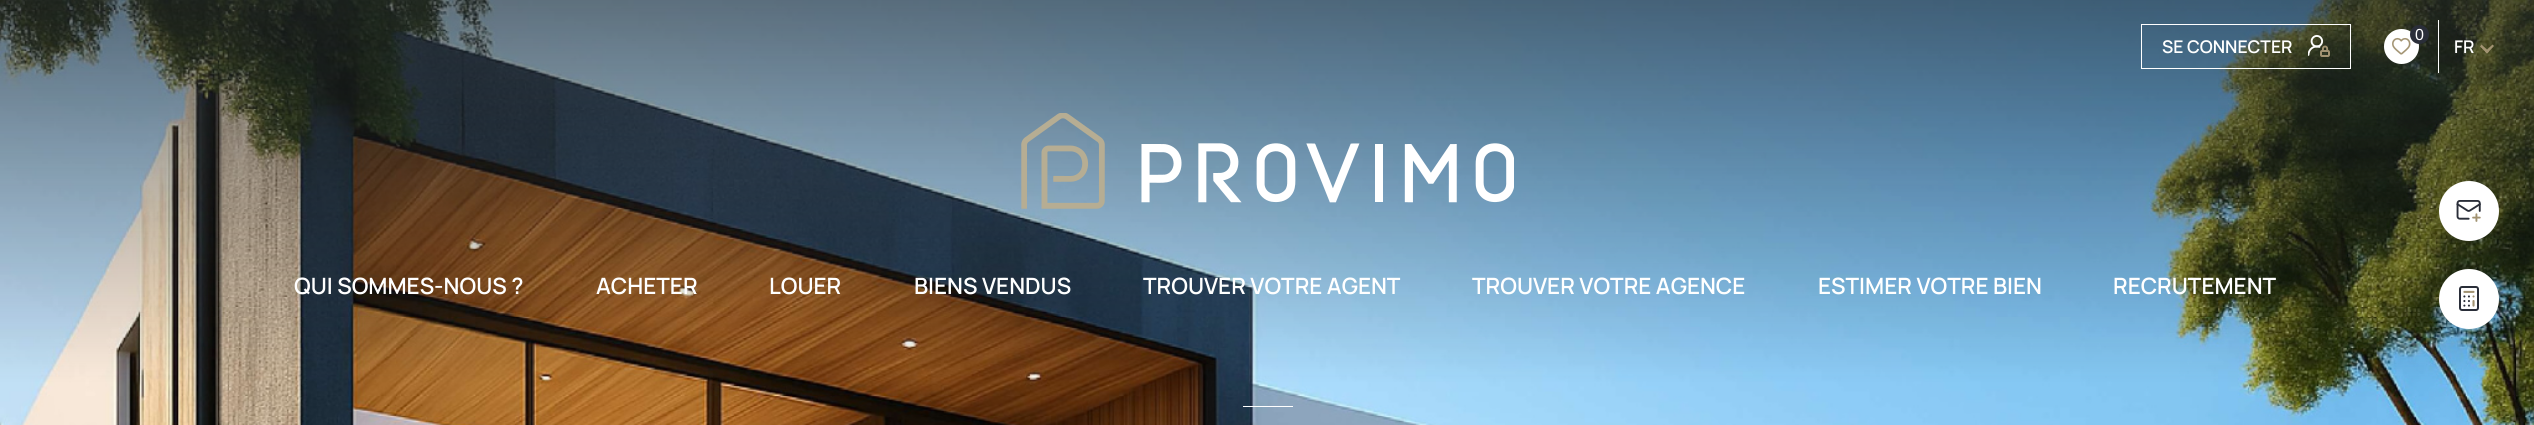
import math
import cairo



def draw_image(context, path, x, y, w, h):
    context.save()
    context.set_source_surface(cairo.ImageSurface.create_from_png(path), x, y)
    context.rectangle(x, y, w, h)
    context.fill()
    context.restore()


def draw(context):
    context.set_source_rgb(1, 1, 1)
    context.paint()
    draw_image(context, "images/1.png", 0, 0, 2534, 425)
    context.set_source_rgb(1, 1, 1)
    context.arc(2401.5, 46.5, 17.5, 0, 2 * math.pi)
    context.fill()
    draw_image(context, "images/2.png", 2392, 37, 19, 18)
    context.set_source_rgb(42 / 255, 46 / 255, 57 / 255)
    context.arc(2419.5, 34.5, 9.5, 0, 2 * math.pi)
    context.fill()
    context.rectangle(2141.5, 24.5, 209, 44)
    context.set_source_rgb(1, 1, 1)
    context.set_line_width(1)
    context.stroke()
    draw_image(context, "images/3.png", 2308, 35, 22, 22)
    context.rectangle(2438, 20, 1, 53)
    context.fill()
    context.set_source_rgb(162 / 255, 147 / 255, 114 / 255)
    context.new_path()
    context.move_to(2492.5, 44.5)
    context.line_to(2494, 46)
    context.line_to(2487, 53.5)
    context.line_to(2485, 51.5)
    context.close_path()
    context.fill()
    context.new_path()
    context.move_to(2481.5, 44.5)
    context.line_to(2489, 51.5)
    context.line_to(2487, 53.5)
    context.line_to(2480, 46.5)
    context.close_path()
    context.fill()
    draw_image(context, "images/4.png", 1021, 113, 493, 96)
    context.set_source_rgb(1, 1, 1)
    context.rectangle(1243, 406, 50, 1)
    context.fill()
    context.arc(2469, 211, 30, 0, 2 * math.pi)
    context.fill()
    draw_image(context, "images/5.png", 2456, 200, 25, 22)
    context.arc(2469, 299, 30, 0, 2 * math.pi)
    context.fill()
    draw_image(context, "images/6.png", 2459, 286, 20, 25)
    context.select_font_face("Liberation Sans")
    context.set_font_size(16)
    context.move_to(2415, 40)
    context.show_text("0")
    context.select_font_face("Manrope SemiBold")
    context.set_font_size(17.5)
    context.move_to(2162, 53)
    context.show_text("SE CONNECTER")
    context.move_to(2454, 53)
    context.show_text("FR")
    context.set_font_size(22.5)
    context.move_to(294, 294)
    context.show_text("QUI SOMMES-NOUS ?")
    context.move_to(596, 294)
    context.show_text("ACHETER")
    context.move_to(769, 294)
    context.show_text("LOUER")
    context.move_to(914, 294)
    context.show_text("BIENS VENDUS")
    context.move_to(1143, 294)
    context.show_text("TROUVER VOTRE AGENT")
    context.move_to(1472, 294)
    context.show_text("TROUVER VOTRE AGENCE")
    context.move_to(1818, 294)
    context.show_text("ESTIMER VOTRE BIEN")
    context.move_to(2113, 294)
    context.show_text("RECRUTEMENT")


surface = cairo.ImageSurface(cairo.Format.RGB24, 2534, 425)
context = cairo.Context(surface)
options = cairo.FontOptions()
options.set_hint_metrics(cairo.HintMetrics.OFF)
options.set_hint_style(cairo.HintStyle.NONE)
context.set_font_options(options)
context.set_miter_limit(4)
draw(context)
surface.write_to_png("out.png")
